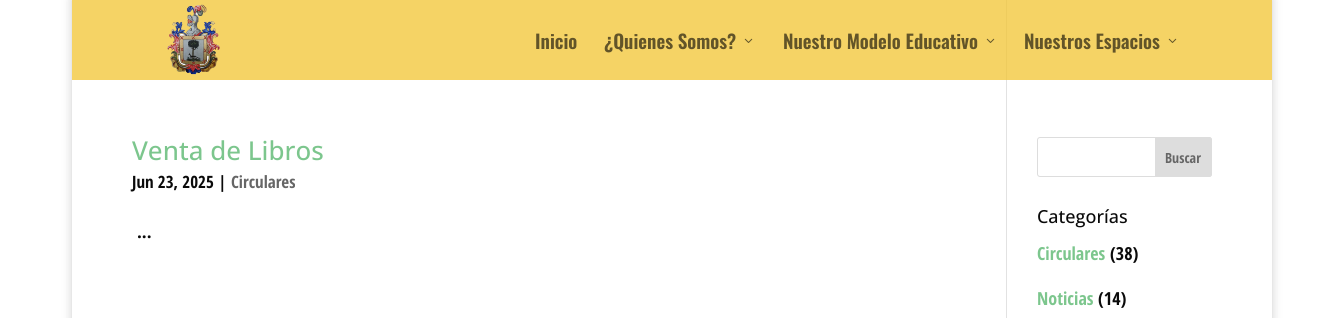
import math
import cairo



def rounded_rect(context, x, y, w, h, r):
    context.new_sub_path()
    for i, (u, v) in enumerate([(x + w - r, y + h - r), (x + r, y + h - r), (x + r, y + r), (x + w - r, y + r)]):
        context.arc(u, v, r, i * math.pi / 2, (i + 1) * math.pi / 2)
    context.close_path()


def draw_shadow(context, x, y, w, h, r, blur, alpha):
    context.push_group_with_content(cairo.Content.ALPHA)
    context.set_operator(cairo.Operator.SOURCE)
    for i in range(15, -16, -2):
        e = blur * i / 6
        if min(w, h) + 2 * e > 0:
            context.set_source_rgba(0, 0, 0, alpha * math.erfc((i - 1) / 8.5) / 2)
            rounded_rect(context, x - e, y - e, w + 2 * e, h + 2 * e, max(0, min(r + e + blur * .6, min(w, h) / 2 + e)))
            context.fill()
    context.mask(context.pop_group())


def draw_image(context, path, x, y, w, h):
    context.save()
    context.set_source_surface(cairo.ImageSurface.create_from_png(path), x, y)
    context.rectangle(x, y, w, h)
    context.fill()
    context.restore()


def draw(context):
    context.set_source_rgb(1, 1, 1)
    context.paint()
    context.set_source_rgb(245 / 255, 211 / 255, 101 / 255)
    context.rectangle(72, 0, 1200, 80)
    context.fill()
    context.save()
    context.set_fill_rule(cairo.FillRule.EVEN_ODD)
    context.new_path()
    context.move_to(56, 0)
    context.line_to(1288, 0)
    context.line_to(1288, 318)
    context.line_to(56, 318)
    context.close_path()
    context.move_to(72, -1)
    context.line_to(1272, -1)
    context.line_to(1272, 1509)
    context.line_to(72, 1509)
    context.close_path()
    context.clip()
    context.set_source_rgb(0, 0, 0)
    draw_shadow(context, 72, -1, 1200, 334, 0, 5, 0.2)
    context.restore()
    draw_image(context, "images/1.png", 167, 4, 53, 71)
    draw_image(context, "images/2.png", 744, 38, 9, 5)
    draw_image(context, "images/2.png", 986, 38, 9, 5)
    draw_image(context, "images/2.png", 1168, 38, 9, 5)
    context.set_source_rgb(226 / 255, 226 / 255, 226 / 255)
    context.rectangle(1006, 80, 1, 238)
    context.fill()
    context.set_source_rgb(238 / 255, 204 / 255, 94 / 255)
    context.rectangle(1006, 0, 1, 80)
    context.fill()
    rounded_rect(context, 1037.5, 137.5, 174, 39, 2.5)
    context.set_source_rgb(221 / 255, 221 / 255, 221 / 255)
    context.set_line_width(1)
    context.stroke()
    context.new_path()
    context.move_to(1155.5, 137.5)
    context.line_to(1209, 137.5)
    context.curve_to(1210.5, 137.5, 1211.5, 138.5, 1211.5, 140)
    context.line_to(1211.5, 174)
    context.curve_to(1211.5, 175.5, 1210.5, 176.5, 1209, 176.5)
    context.line_to(1155.5, 176.5)
    context.close_path()
    context.fill_preserve()
    context.stroke()
    context.select_font_face("Oswald SemiBold")
    context.set_font_size(19)
    context.set_source_rgb(98 / 255, 84 / 255, 40 / 255)
    context.move_to(535, 49)
    context.show_text("Inicio")
    context.move_to(604, 49)
    context.show_text("¿Quienes Somos?")
    context.move_to(783, 49)
    context.show_text("Nuestro Modelo Educativo")
    context.move_to(1024, 49)
    context.show_text("Nuestros Espacios")
    context.select_font_face("Open Sans Medium")
    context.set_font_size(26)
    context.set_source_rgb(124 / 255, 198 / 255, 141 / 255)
    context.move_to(132, 160)
    context.show_text("Venta de Libros")
    context.select_font_face("Open Sans Condensed", cairo.FontSlant.NORMAL, cairo.FontWeight.BOLD)
    context.set_font_size(17)
    context.set_source_rgb(10 / 255, 10 / 255, 10 / 255)
    context.move_to(132, 188)
    context.show_text("Jun 23, 2025 |")
    context.set_source_rgb(102 / 255, 102 / 255, 102 / 255)
    context.move_to(231, 188)
    context.show_text("Circulares")
    context.set_font_size(18)
    context.set_source_rgb(10 / 255, 10 / 255, 10 / 255)
    context.move_to(137, 238)
    context.show_text("...")
    context.set_font_size(14)
    context.set_source_rgb(102 / 255, 102 / 255, 102 / 255)
    context.move_to(1165, 163)
    context.show_text("Buscar")
    context.select_font_face("Open Sans Medium")
    context.set_font_size(18)
    context.set_source_rgb(10 / 255, 10 / 255, 10 / 255)
    context.move_to(1037, 223)
    context.show_text("Categorías")
    context.select_font_face("Open Sans Condensed", cairo.FontSlant.NORMAL, cairo.FontWeight.BOLD)
    context.set_source_rgb(124 / 255, 198 / 255, 141 / 255)
    context.move_to(1037, 260)
    context.show_text("Circulares")
    context.set_source_rgb(10 / 255, 10 / 255, 10 / 255)
    context.move_to(1110, 260)
    context.show_text("(38)")
    context.set_source_rgb(124 / 255, 198 / 255, 141 / 255)
    context.move_to(1037, 305)
    context.show_text("Noticias")
    context.set_source_rgb(10 / 255, 10 / 255, 10 / 255)
    context.move_to(1098, 305)
    context.show_text("(14)")


surface = cairo.ImageSurface(cairo.Format.RGB24, 1344, 318)
context = cairo.Context(surface)
options = cairo.FontOptions()
options.set_hint_metrics(cairo.HintMetrics.OFF)
options.set_hint_style(cairo.HintStyle.NONE)
context.set_font_options(options)
context.set_miter_limit(4)
draw(context)
surface.write_to_png("out.png")
